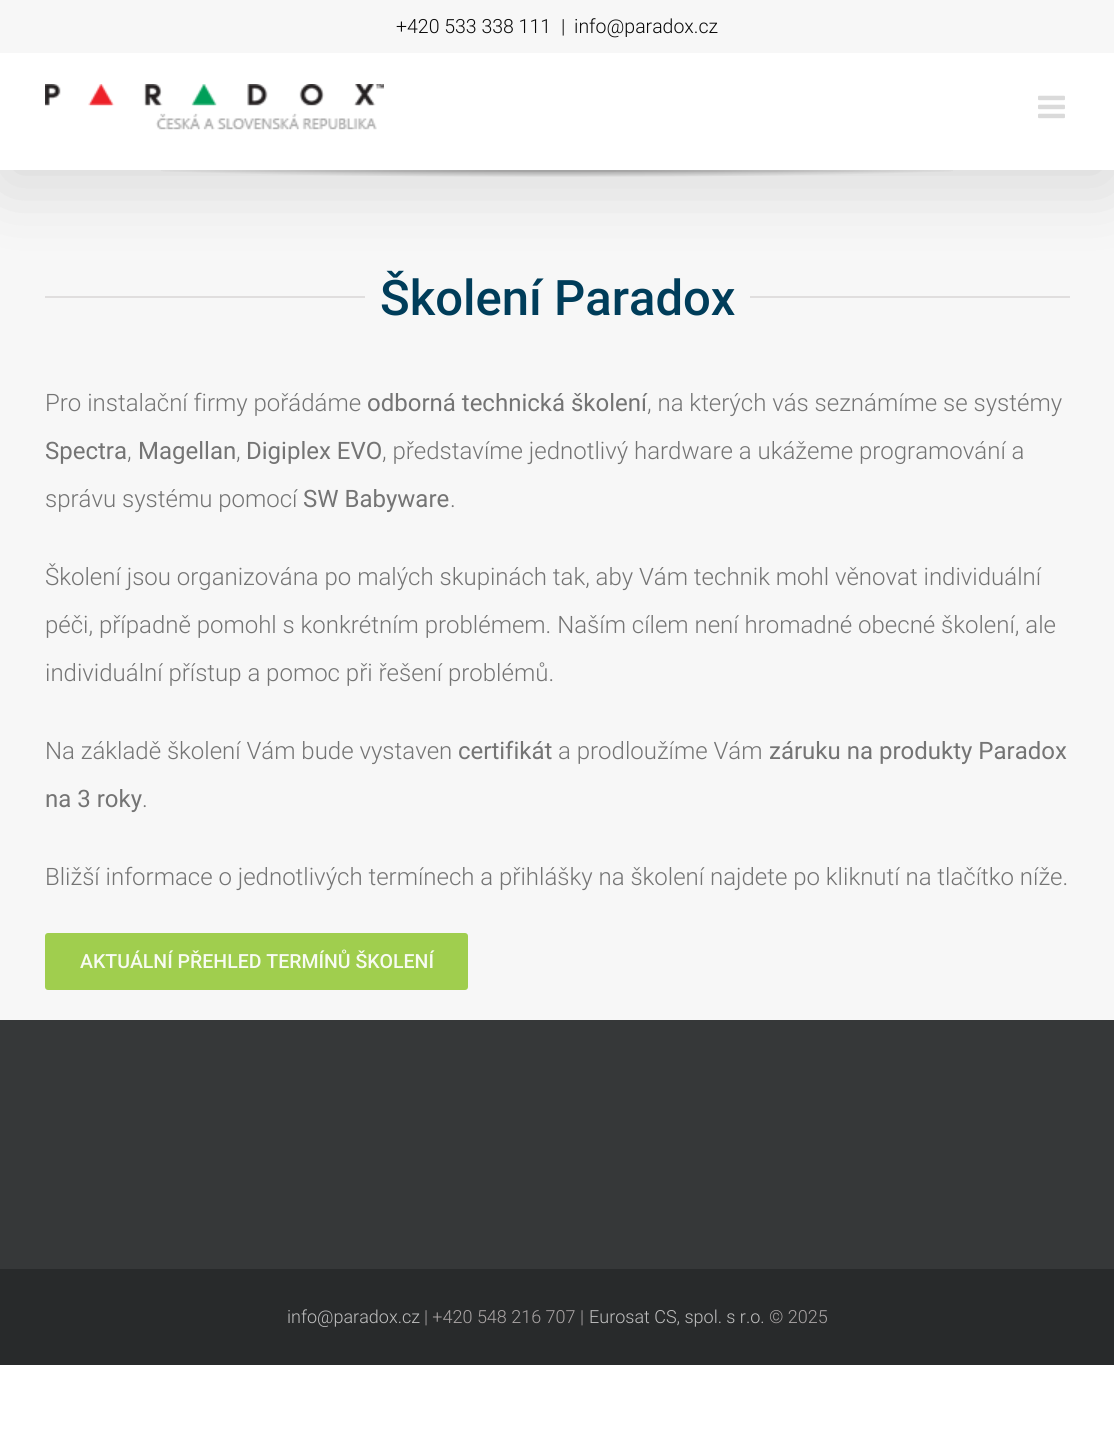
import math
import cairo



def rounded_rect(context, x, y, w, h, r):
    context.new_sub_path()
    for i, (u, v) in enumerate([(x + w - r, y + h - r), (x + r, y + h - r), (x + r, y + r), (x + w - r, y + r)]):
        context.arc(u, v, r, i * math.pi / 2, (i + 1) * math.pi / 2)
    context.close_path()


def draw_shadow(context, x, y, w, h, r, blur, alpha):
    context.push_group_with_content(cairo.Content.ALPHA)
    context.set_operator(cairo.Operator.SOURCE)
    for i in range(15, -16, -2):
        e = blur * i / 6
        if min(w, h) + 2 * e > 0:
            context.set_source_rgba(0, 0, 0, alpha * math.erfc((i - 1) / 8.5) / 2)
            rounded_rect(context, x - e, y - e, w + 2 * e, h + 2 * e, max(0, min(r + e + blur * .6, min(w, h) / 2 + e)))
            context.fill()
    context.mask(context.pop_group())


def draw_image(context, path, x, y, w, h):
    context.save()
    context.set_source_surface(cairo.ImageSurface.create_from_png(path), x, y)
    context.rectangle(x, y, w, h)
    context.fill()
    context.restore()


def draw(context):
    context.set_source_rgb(1, 1, 1)
    context.paint()
    context.set_source_rgb(247 / 255, 247 / 255, 247 / 255)
    context.rectangle(0, 170, 1114, 850)
    context.fill()
    gradient = cairo.RadialGradient(0, 0, 0, 0, 0, 1)
    gradient.set_matrix(cairo.Matrix(1 / 724, 0, 0, 1 / 3.2, -1 * 557 / 724, -1 * 170 / 3.2))
    gradient.add_color_stop_rgba(0, 224 / 255, 222 / 255, 222 / 255, 1)
    gradient.add_color_stop_rgba(0.8, 247 / 255, 247 / 255, 247 / 255, 1)
    context.set_source(gradient)
    context.rectangle(163, 171, 788, 1)
    context.fill()
    gradient = cairo.RadialGradient(0, 0, 0, 0, 0, 1)
    gradient.set_matrix(cairo.Matrix(1 / 724, 0, 0, 1 / 19, -1 * 557 / 724, -1 * 165 / 19))
    gradient.add_color_stop_rgba(0, 0, 0, 0, 0.5)
    gradient.add_color_stop_rgba(0.65, 0, 0, 0, 0)
    context.set_source(gradient)
    context.rectangle(161, 170, 792, 7)
    context.fill()
    context.set_source_rgb(0, 0, 0)
    draw_shadow(context, 3, 18, 1109, 164, 0, 37.5, 0.14)
    context.set_source_rgb(247 / 255, 247 / 255, 247 / 255)
    context.rectangle(0, 0, 1114, 53)
    context.fill()
    context.set_source_rgb(1, 1, 1)
    context.rectangle(0, 53, 1114, 117)
    context.fill()
    draw_image(context, "images/1.png", 45, 84, 339, 46)
    draw_image(context, "images/2.png", 1038, 95, 27, 24)
    context.set_source_rgb(224 / 255, 222 / 255, 222 / 255)
    context.rectangle(45, 296, 320, 2)
    context.fill()
    context.rectangle(750, 296, 320, 2)
    context.fill()
    context.set_source_rgb(160 / 255, 206 / 255, 78 / 255)
    rounded_rect(context, 45, 933, 423, 57, 3)
    context.fill()
    context.set_source_rgb(54 / 255, 56 / 255, 57 / 255)
    context.rectangle(0, 1020, 1114, 249)
    context.fill()
    context.set_source_rgb(40 / 255, 42 / 255, 43 / 255)
    context.rectangle(0, 1269, 1114, 96)
    context.fill()
    context.select_font_face("Roboto Light")
    context.set_font_size(19.5)
    context.set_source_rgb(10 / 255, 10 / 255, 10 / 255)
    context.move_to(396, 33)
    context.show_text("+420 533 338 111")
    context.move_to(561, 33)
    context.show_text("|")
    context.move_to(574, 33)
    context.show_text("info@paradox.cz")
    context.select_font_face("Roboto Medium")
    context.set_font_size(49)
    context.set_source_rgb(0, 61 / 255, 90 / 255)
    context.move_to(380, 315)
    context.show_text("Školení Paradox")
    context.select_font_face("Roboto Light")
    context.set_font_size(24)
    context.set_source_rgb(116 / 255, 116 / 255, 116 / 255)
    context.move_to(45, 411)
    context.show_text("Pro instalační firmy pořádáme")
    context.select_font_face("Roboto")
    context.move_to(367, 411)
    context.show_text("odborná technická školení")
    context.select_font_face("Roboto Light")
    context.move_to(647, 411)
    context.show_text(", na kterých vás seznámíme se systémy")
    context.select_font_face("Roboto")
    context.move_to(45, 459)
    context.show_text("Spectra")
    context.select_font_face("Roboto Light")
    context.move_to(127, 459)
    context.show_text(",")
    context.select_font_face("Roboto")
    context.move_to(138, 459)
    context.show_text("Magellan")
    context.select_font_face("Roboto Light")
    context.move_to(236, 459)
    context.show_text(",")
    context.select_font_face("Roboto")
    context.move_to(246, 459)
    context.show_text("Digiplex EVO")
    context.select_font_face("Roboto Light")
    context.move_to(382, 459)
    context.show_text(", představíme jednotlivý hardware a ukážeme programování a")
    context.move_to(45, 507)
    context.show_text("správu systému pomocí")
    context.select_font_face("Roboto")
    context.move_to(303, 507)
    context.show_text("SW Babyware")
    context.select_font_face("Roboto Light")
    context.move_to(450, 507)
    context.show_text(".")
    context.move_to(45, 585)
    context.show_text("Školení jsou organizována po malých skupinách tak, aby Vám technik mohl věnovat individuální")
    context.move_to(45, 633)
    context.show_text("péči, případně pomohl s konkrétním problémem. Naším cílem není hromadné obecné školení, ale")
    context.move_to(45, 681)
    context.show_text("individuální přístup a pomoc při řešení problémů.")
    context.move_to(45, 759)
    context.show_text("Na základě školení Vám bude vystaven")
    context.select_font_face("Roboto")
    context.move_to(458, 759)
    context.show_text("certifikát")
    context.select_font_face("Roboto Light")
    context.move_to(558, 759)
    context.show_text("a prodloužíme Vám")
    context.select_font_face("Roboto")
    context.move_to(769, 759)
    context.show_text("záruku na produkty Paradox")
    context.move_to(45, 807)
    context.show_text("na 3 roky")
    context.select_font_face("Roboto Light")
    context.move_to(142, 807)
    context.show_text(".")
    context.move_to(45, 885)
    context.show_text("Bližší informace o jednotlivých termínech a přihlášky na školení najdete po kliknutí na tlačítko níže.")
    context.select_font_face("Roboto Medium")
    context.set_font_size(19.5)
    context.set_source_rgb(247 / 255, 251 / 255, 241 / 255)
    context.move_to(80, 968)
    context.show_text("AKTUÁLNÍ PŘEHLED TERMÍNŮ ŠKOLENÍ")
    context.select_font_face("Roboto Light")
    context.set_font_size(18)
    context.set_source_rgb(191 / 255, 191 / 255, 191 / 255)
    context.move_to(287, 1323)
    context.show_text("info@paradox.cz")
    context.set_source_rgb(170 / 255, 165 / 255, 165 / 255)
    context.move_to(424, 1323)
    context.show_text("| +420 548 216 707 |")
    context.set_source_rgb(191 / 255, 191 / 255, 191 / 255)
    context.move_to(589, 1323)
    context.show_text("Eurosat CS, spol. s r.o.")
    context.set_source_rgb(170 / 255, 165 / 255, 165 / 255)
    context.move_to(769, 1323)
    context.show_text("© 2025")


surface = cairo.ImageSurface(cairo.Format.RGB24, 1114, 1446)
context = cairo.Context(surface)
options = cairo.FontOptions()
options.set_hint_metrics(cairo.HintMetrics.OFF)
options.set_hint_style(cairo.HintStyle.NONE)
context.set_font_options(options)
context.set_miter_limit(4)
draw(context)
surface.write_to_png("out.png")
